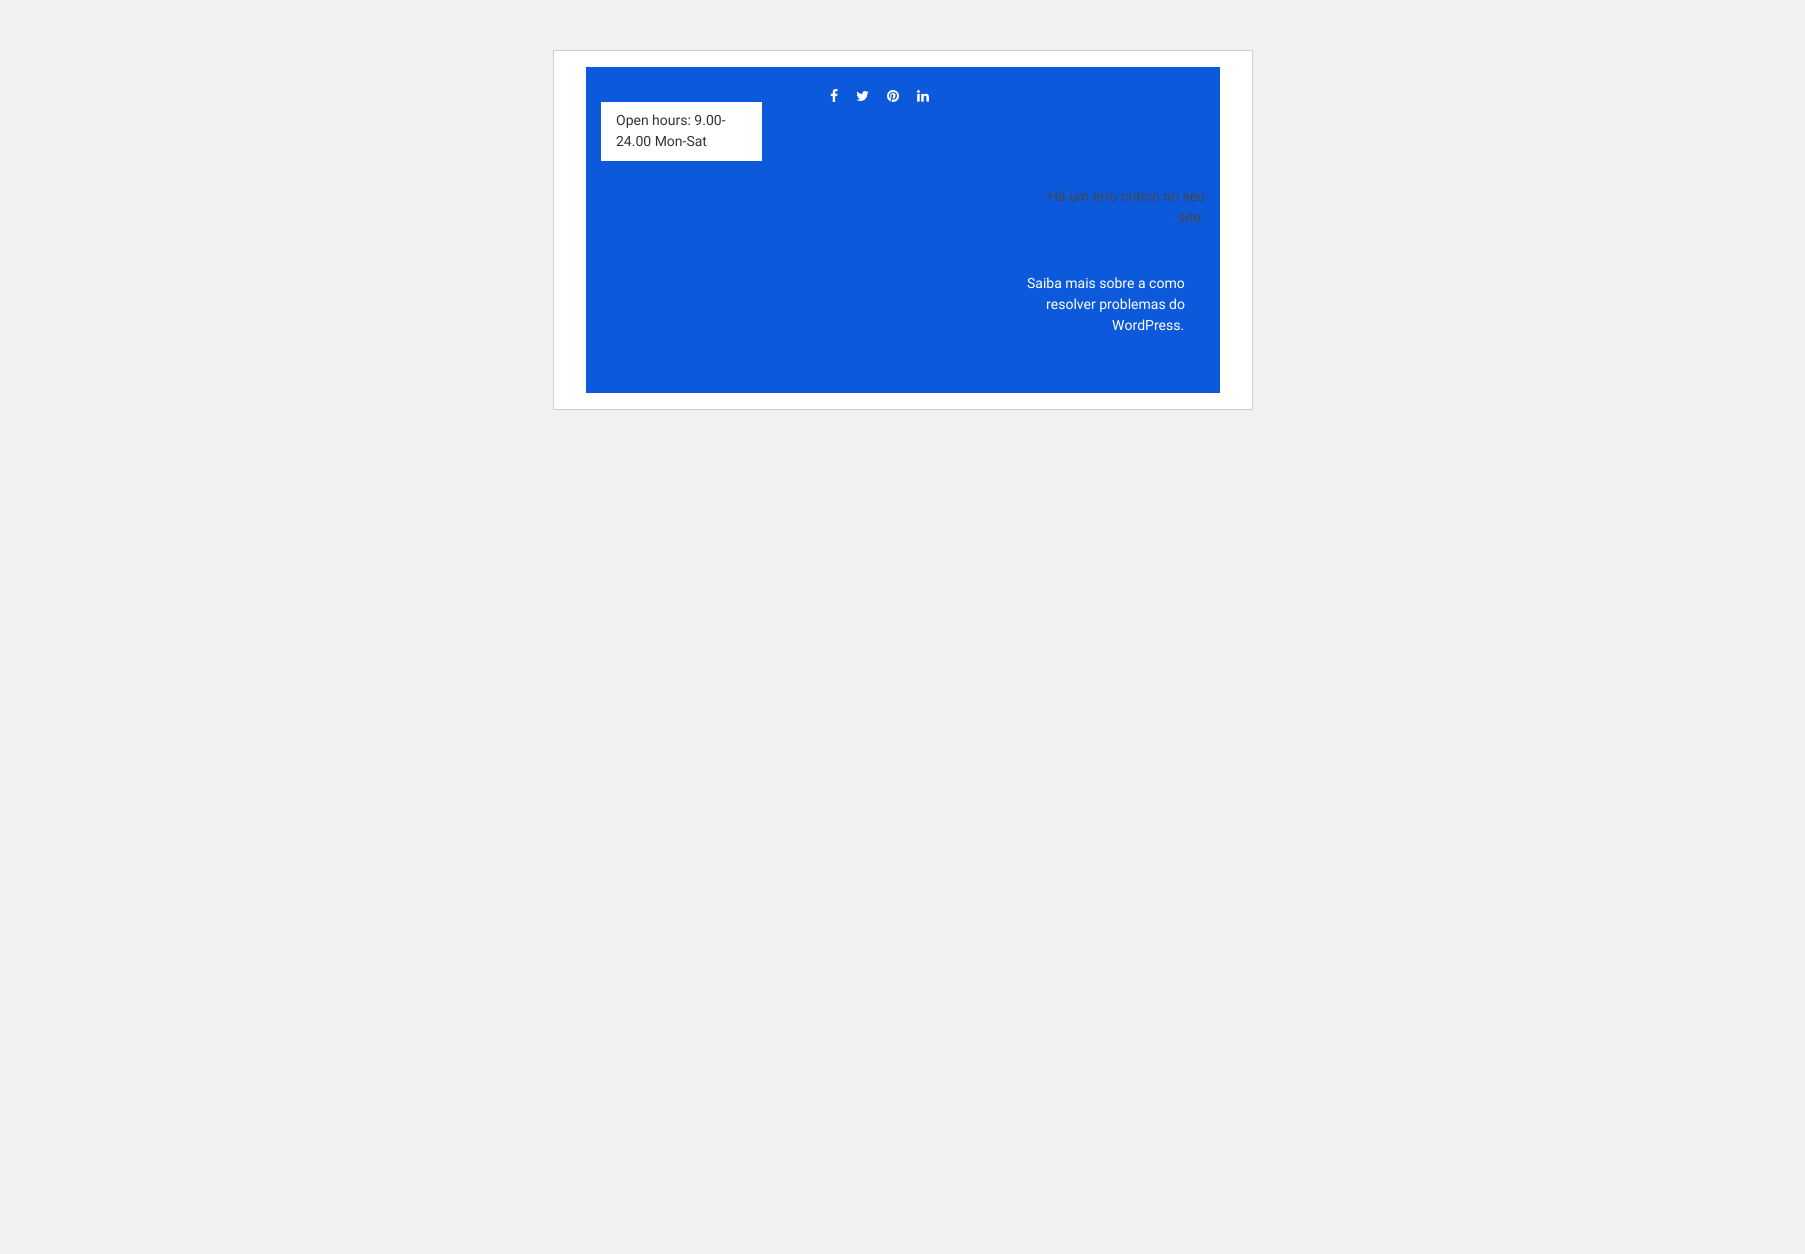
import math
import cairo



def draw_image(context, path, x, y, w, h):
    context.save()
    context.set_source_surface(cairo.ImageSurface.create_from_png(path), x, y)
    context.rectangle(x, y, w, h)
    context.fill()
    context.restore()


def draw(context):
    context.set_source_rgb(241 / 255, 241 / 255, 241 / 255)
    context.paint()
    context.set_source_rgb(1, 1, 1)
    context.rectangle(553.5, 50.5, 699, 359)
    context.fill_preserve()
    context.set_source_rgb(204 / 255, 208 / 255, 212 / 255)
    context.set_line_width(1)
    context.stroke()
    context.set_source_rgb(12 / 255, 90 / 255, 219 / 255)
    context.rectangle(586, 67, 634, 326)
    context.fill()
    draw_image(context, "images/1.png", 830, 89, 8, 13)
    draw_image(context, "images/2.png", 856, 91, 13, 10)
    draw_image(context, "images/3.png", 887, 90, 12, 12)
    draw_image(context, "images/4.png", 917, 90, 12, 12)
    context.set_source_rgb(1, 1, 1)
    context.rectangle(601, 102, 161, 59)
    context.fill()
    context.select_font_face("Roboto")
    context.set_font_size(14)
    context.set_source_rgb(51 / 255, 51 / 255, 51 / 255)
    context.move_to(616, 125)
    context.show_text("Open hours: 9.00-")
    context.move_to(616, 146)
    context.show_text("24.00 Mon-Sat")
    context.set_source_rgb(68 / 255, 68 / 255, 68 / 255)
    context.move_to(1048, 201)
    context.show_text("Há um erro crítico no seu")
    context.move_to(1178, 222)
    context.show_text("site.")
    context.set_source_rgb(1, 1, 1)
    context.move_to(1027, 288)
    context.show_text("Saiba mais sobre a como")
    context.move_to(1046, 309)
    context.show_text("resolver problemas do")
    context.move_to(1112, 330)
    context.show_text("WordPress.")


surface = cairo.ImageSurface(cairo.Format.RGB24, 1805, 1254)
context = cairo.Context(surface)
options = cairo.FontOptions()
options.set_hint_metrics(cairo.HintMetrics.OFF)
options.set_hint_style(cairo.HintStyle.NONE)
context.set_font_options(options)
context.set_miter_limit(4)
draw(context)
surface.write_to_png("out.png")
